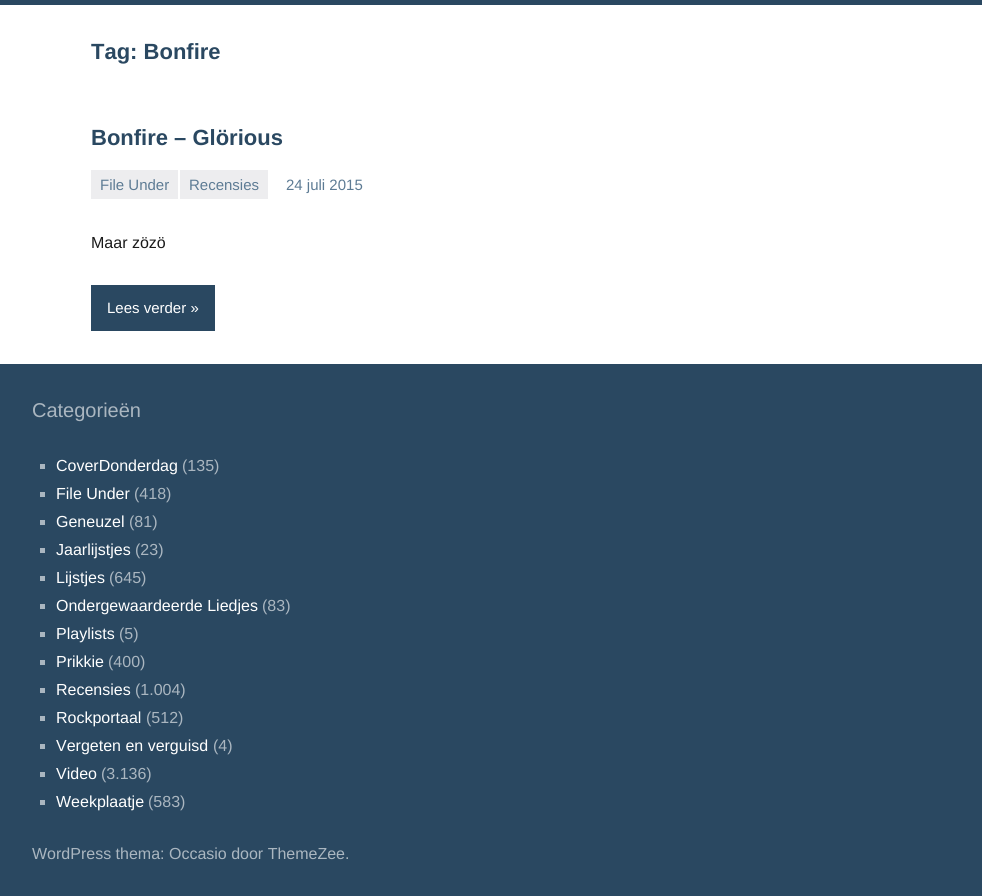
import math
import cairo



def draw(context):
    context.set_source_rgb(42 / 255, 72 / 255, 97 / 255)
    context.paint()
    context.set_source_rgb(1, 1, 1)
    context.rectangle(0, 5, 982, 359)
    context.fill()
    context.set_source_rgb(237 / 255, 237 / 255, 239 / 255)
    context.rectangle(91, 170, 87, 29)
    context.fill()
    context.rectangle(180, 170, 88, 29)
    context.fill()
    context.set_source_rgb(42 / 255, 72 / 255, 97 / 255)
    context.rectangle(91, 285, 124, 46)
    context.fill()
    context.set_source_rgb(170 / 255, 182 / 255, 192 / 255)
    context.rectangle(40, 464, 5, 5)
    context.fill()
    context.rectangle(40, 492, 5, 5)
    context.fill()
    context.rectangle(40, 520, 5, 5)
    context.fill()
    context.rectangle(40, 548, 5, 5)
    context.fill()
    context.rectangle(40, 576, 5, 5)
    context.fill()
    context.rectangle(40, 604, 5, 5)
    context.fill()
    context.rectangle(40, 632, 5, 5)
    context.fill()
    context.rectangle(40, 660, 5, 5)
    context.fill()
    context.rectangle(40, 688, 5, 5)
    context.fill()
    context.rectangle(40, 716, 5, 5)
    context.fill()
    context.rectangle(40, 744, 5, 5)
    context.fill()
    context.rectangle(40, 772, 5, 5)
    context.fill()
    context.rectangle(40, 800, 5, 5)
    context.fill()
    context.select_font_face("Liberation Sans", cairo.FontSlant.NORMAL, cairo.FontWeight.BOLD)
    context.set_font_size(22)
    context.set_source_rgb(42 / 255, 72 / 255, 97 / 255)
    context.move_to(91, 59)
    context.show_text("Tag: Bonfire")
    context.move_to(91, 145)
    context.show_text("Bonfire – Glörious")
    context.select_font_face("Liberation Sans")
    context.set_font_size(15)
    context.set_source_rgb(93 / 255, 123 / 255, 148 / 255)
    context.move_to(100, 190)
    context.show_text("File Under")
    context.move_to(189, 190)
    context.show_text("Recensies")
    context.move_to(286, 190)
    context.show_text("24 juli 2015")
    context.set_font_size(16)
    context.set_source_rgb(26 / 255, 26 / 255, 26 / 255)
    context.move_to(91, 248)
    context.show_text("Maar zözö")
    context.set_font_size(15)
    context.set_source_rgb(1, 1, 1)
    context.move_to(107, 313)
    context.show_text("Lees verder »")
    context.set_font_size(20)
    context.set_source_rgb(170 / 255, 182 / 255, 192 / 255)
    context.move_to(32, 417)
    context.show_text("Categorieën")
    context.set_font_size(16)
    context.set_source_rgb(1, 1, 1)
    context.move_to(56, 471)
    context.show_text("CoverDonderdag")
    context.set_source_rgb(170 / 255, 182 / 255, 192 / 255)
    context.move_to(182, 471)
    context.show_text("(135)")
    context.set_source_rgb(1, 1, 1)
    context.move_to(56, 499)
    context.show_text("File Under")
    context.set_source_rgb(170 / 255, 182 / 255, 192 / 255)
    context.move_to(134, 499)
    context.show_text("(418)")
    context.set_source_rgb(1, 1, 1)
    context.move_to(56, 527)
    context.show_text("Geneuzel")
    context.set_source_rgb(170 / 255, 182 / 255, 192 / 255)
    context.move_to(129, 527)
    context.show_text("(81)")
    context.set_source_rgb(1, 1, 1)
    context.move_to(56, 555)
    context.show_text("Jaarlijstjes")
    context.set_source_rgb(170 / 255, 182 / 255, 192 / 255)
    context.move_to(135, 555)
    context.show_text("(23)")
    context.set_source_rgb(1, 1, 1)
    context.move_to(56, 583)
    context.show_text("Lijstjes")
    context.set_source_rgb(170 / 255, 182 / 255, 192 / 255)
    context.move_to(109, 583)
    context.show_text("(645)")
    context.set_source_rgb(1, 1, 1)
    context.move_to(56, 611)
    context.show_text("Ondergewaardeerde Liedjes")
    context.set_source_rgb(170 / 255, 182 / 255, 192 / 255)
    context.move_to(262, 611)
    context.show_text("(83)")
    context.set_source_rgb(1, 1, 1)
    context.move_to(56, 639)
    context.show_text("Playlists")
    context.set_source_rgb(170 / 255, 182 / 255, 192 / 255)
    context.move_to(119, 639)
    context.show_text("(5)")
    context.set_source_rgb(1, 1, 1)
    context.move_to(56, 667)
    context.show_text("Prikkie")
    context.set_source_rgb(170 / 255, 182 / 255, 192 / 255)
    context.move_to(108, 667)
    context.show_text("(400)")
    context.set_source_rgb(1, 1, 1)
    context.move_to(56, 695)
    context.show_text("Recensies")
    context.set_source_rgb(170 / 255, 182 / 255, 192 / 255)
    context.move_to(135, 695)
    context.show_text("(1.004)")
    context.set_source_rgb(1, 1, 1)
    context.move_to(56, 723)
    context.show_text("Rockportaal")
    context.set_source_rgb(170 / 255, 182 / 255, 192 / 255)
    context.move_to(146, 723)
    context.show_text("(512)")
    context.set_source_rgb(1, 1, 1)
    context.move_to(56, 751)
    context.show_text("Vergeten en verguisd")
    context.set_source_rgb(170 / 255, 182 / 255, 192 / 255)
    context.move_to(213, 751)
    context.show_text("(4)")
    context.set_source_rgb(1, 1, 1)
    context.move_to(56, 779)
    context.show_text("Video")
    context.set_source_rgb(170 / 255, 182 / 255, 192 / 255)
    context.move_to(101, 779)
    context.show_text("(3.136)")
    context.set_source_rgb(1, 1, 1)
    context.move_to(56, 807)
    context.show_text("Weekplaatje")
    context.set_source_rgb(170 / 255, 182 / 255, 192 / 255)
    context.move_to(148, 807)
    context.show_text("(583)")
    context.move_to(32, 859)
    context.show_text("WordPress thema: Occasio door ThemeZee.")


surface = cairo.ImageSurface(cairo.Format.RGB24, 982, 896)
context = cairo.Context(surface)
options = cairo.FontOptions()
options.set_hint_metrics(cairo.HintMetrics.OFF)
options.set_hint_style(cairo.HintStyle.NONE)
context.set_font_options(options)
context.set_miter_limit(4)
draw(context)
surface.write_to_png("out.png")
